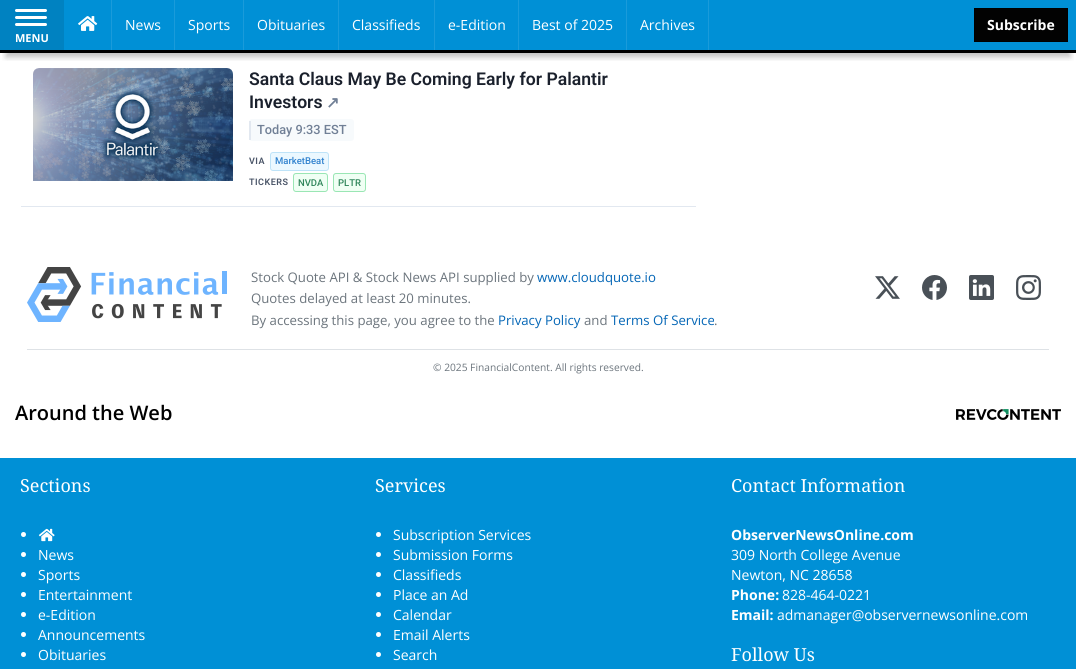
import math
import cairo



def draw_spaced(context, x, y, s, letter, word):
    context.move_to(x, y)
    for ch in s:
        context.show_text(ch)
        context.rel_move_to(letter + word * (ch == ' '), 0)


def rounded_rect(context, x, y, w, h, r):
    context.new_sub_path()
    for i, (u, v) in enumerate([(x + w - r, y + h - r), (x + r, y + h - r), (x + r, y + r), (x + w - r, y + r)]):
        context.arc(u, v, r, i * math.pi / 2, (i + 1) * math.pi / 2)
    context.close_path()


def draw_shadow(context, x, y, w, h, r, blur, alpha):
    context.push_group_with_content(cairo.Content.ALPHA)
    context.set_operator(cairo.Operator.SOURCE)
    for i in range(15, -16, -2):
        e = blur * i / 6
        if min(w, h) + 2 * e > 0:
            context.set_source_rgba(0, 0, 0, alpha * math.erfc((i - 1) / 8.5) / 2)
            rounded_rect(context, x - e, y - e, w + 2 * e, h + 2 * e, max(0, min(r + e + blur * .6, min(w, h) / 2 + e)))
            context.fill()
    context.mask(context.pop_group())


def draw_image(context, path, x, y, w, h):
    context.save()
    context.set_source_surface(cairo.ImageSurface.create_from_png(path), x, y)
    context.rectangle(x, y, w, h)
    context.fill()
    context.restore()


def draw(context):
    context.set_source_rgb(1, 1, 1)
    context.paint()
    context.set_source_rgb(0, 144 / 255, 214 / 255)
    context.rectangle(64, 0, 1012, 50)
    context.fill()
    context.save()
    context.rectangle(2, 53, 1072, 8)
    context.clip()
    context.set_source_rgb(0, 0, 0)
    draw_shadow(context, 6, 16, 1064, 41, 0, 3, 0.25)
    context.restore()
    context.set_source_rgb(0, 0, 0)
    context.rectangle(0, 50, 1076, 3)
    context.fill()
    context.set_source_rgb(26 / 255, 155 / 255, 218 / 255)
    context.rectangle(111, 0, 1, 50)
    context.fill()
    draw_image(context, "images/1.png", 78, 16, 20, 15)
    context.rectangle(174, 0, 1, 50)
    context.fill()
    context.rectangle(243, 0, 1, 50)
    context.fill()
    context.rectangle(338, 0, 1, 50)
    context.fill()
    context.rectangle(434, 0, 1, 50)
    context.fill()
    context.rectangle(518, 0, 1, 50)
    context.fill()
    context.rectangle(626, 0, 1, 50)
    context.fill()
    context.rectangle(708, 0, 1, 50)
    context.fill()
    context.set_source_rgb(2 / 255, 2 / 255, 2 / 255)
    context.rectangle(974.5, 8.5, 93, 33)
    context.fill_preserve()
    context.set_source_rgb(0, 0, 0)
    context.set_line_width(1)
    context.stroke()
    context.set_source_rgb(0, 130 / 255, 193 / 255)
    context.rectangle(0, 0, 64, 50)
    context.fill()
    context.set_source_rgb(1, 1, 1)
    rounded_rect(context, 15, 9, 32, 3, 1.5)
    context.fill()
    rounded_rect(context, 15, 16, 32, 3, 1.5)
    context.fill()
    rounded_rect(context, 15, 23, 32, 3, 1.5)
    context.fill()
    context.set_source_rgb(226 / 255, 232 / 255, 240 / 255)
    context.rectangle(21, 206, 675, 1)
    context.fill()
    draw_image(context, "images/2.png", 33, 68, 200, 113)
    context.set_source_rgb(247 / 255, 250 / 255, 252 / 255)
    rounded_rect(context, 249, 119, 105, 22, 3)
    context.fill()
    context.set_source_rgb(226 / 255, 232 / 255, 240 / 255)
    context.rectangle(249, 121, 2, 19)
    context.fill()
    context.set_source_rgb(235 / 255, 248 / 255, 1)
    rounded_rect(context, 270.5, 152.5, 58, 18, 2.5)
    context.fill_preserve()
    context.set_source_rgb(190 / 255, 227 / 255, 248 / 255)
    context.stroke()
    context.set_source_rgb(240 / 255, 1, 244 / 255)
    rounded_rect(context, 293.5, 173.5, 34, 18, 2.5)
    context.fill_preserve()
    context.set_source_rgb(154 / 255, 230 / 255, 180 / 255)
    context.stroke()
    context.set_source_rgb(240 / 255, 1, 244 / 255)
    rounded_rect(context, 333.5, 173.5, 32, 18, 2.5)
    context.fill_preserve()
    context.set_source_rgb(154 / 255, 230 / 255, 180 / 255)
    context.stroke()
    draw_image(context, "images/3.png", 27, 267, 200, 55)
    draw_image(context, "images/4.png", 875, 276, 25, 23)
    draw_image(context, "images/5.png", 922, 275, 25, 25)
    draw_image(context, "images/6.png", 969, 275, 25, 25)
    draw_image(context, "images/7.png", 1016, 275, 25, 25)
    context.set_source_rgb(222 / 255, 226 / 255, 230 / 255)
    context.rectangle(27, 349, 1022, 1)
    context.fill()
    draw_image(context, "images/8.png", 956, 409, 105, 11)
    context.set_source_rgb(0, 144 / 255, 214 / 255)
    context.rectangle(0, 458, 1076, 211)
    context.fill()
    context.set_source_rgb(1, 1, 1)
    context.arc(23.5, 534.5, 2.5, 0, 2 * math.pi)
    context.fill()
    draw_image(context, "images/9.png", 38, 528, 17, 14)
    context.arc(23.5, 554.5, 2.5, 0, 2 * math.pi)
    context.fill()
    context.arc(23.5, 574.5, 2.5, 0, 2 * math.pi)
    context.fill()
    context.arc(23.5, 594.5, 2.5, 0, 2 * math.pi)
    context.fill()
    context.arc(23.5, 614.5, 2.5, 0, 2 * math.pi)
    context.fill()
    context.arc(23.5, 634.5, 2.5, 0, 2 * math.pi)
    context.fill()
    context.arc(23.5, 654.5, 2.5, 0, 2 * math.pi)
    context.fill()
    context.arc(378.5, 534.5, 2.5, 0, 2 * math.pi)
    context.fill()
    context.arc(378.5, 554.5, 2.5, 0, 2 * math.pi)
    context.fill()
    context.arc(378.5, 574.5, 2.5, 0, 2 * math.pi)
    context.fill()
    context.arc(378.5, 594.5, 2.5, 0, 2 * math.pi)
    context.fill()
    context.arc(378.5, 614.5, 2.5, 0, 2 * math.pi)
    context.fill()
    context.arc(378.5, 634.5, 2.5, 0, 2 * math.pi)
    context.fill()
    context.arc(378.5, 654.5, 2.5, 0, 2 * math.pi)
    context.fill()
    context.select_font_face("Open Sans")
    context.set_font_size(14)
    context.move_to(125, 30)
    context.show_text("News")
    context.move_to(188, 30)
    context.show_text("Sports")
    context.move_to(257, 30)
    context.show_text("Obituaries")
    context.move_to(352, 30)
    context.show_text("Classifieds")
    context.move_to(448, 30)
    context.show_text("e-Edition")
    context.move_to(532, 30)
    context.show_text("Best of 2025")
    context.move_to(640, 30)
    context.show_text("Archives")
    context.select_font_face("Open Sans", cairo.FontSlant.NORMAL, cairo.FontWeight.BOLD)
    context.move_to(987, 30)
    context.show_text("Subscribe")
    context.set_font_size(11)
    context.move_to(15, 42)
    context.show_text("MENU")
    context.select_font_face("Roboto SemiBold")
    context.set_font_size(17.6)
    context.set_source_rgb(26 / 255, 32 / 255, 44 / 255)
    context.move_to(249, 85)
    context.show_text("Santa Claus May Be Coming Early for Palantir")
    context.move_to(249, 108)
    context.show_text("Investors")
    context.select_font_face("DejaVu Sans", cairo.FontSlant.NORMAL, cairo.FontWeight.BOLD)
    context.set_font_size(16)
    context.set_source_rgb(113 / 255, 128 / 255, 150 / 255)
    context.move_to(326, 108)
    context.show_text("↗")
    context.select_font_face("Roboto Medium")
    context.set_font_size(12.75)
    context.move_to(257, 134)
    context.show_text("Today 9:33 EST")
    context.select_font_face("Roboto SemiBold")
    context.set_font_size(9)
    context.set_source_rgb(74 / 255, 85 / 255, 104 / 255)
    draw_spaced(context, 249, 164, "VIA", 0.5, 0)
    context.select_font_face("Roboto Medium")
    context.set_font_size(9.5)
    context.set_source_rgb(49 / 255, 130 / 255, 206 / 255)
    context.move_to(275, 164)
    context.show_text("MarketBeat")
    context.select_font_face("Roboto SemiBold")
    context.set_font_size(9)
    context.set_source_rgb(74 / 255, 85 / 255, 104 / 255)
    draw_spaced(context, 249, 185, "TICKERS", 0.5, 0)
    context.select_font_face("Roboto Medium")
    context.set_font_size(9.5)
    context.set_source_rgb(47 / 255, 133 / 255, 90 / 255)
    context.move_to(298, 186)
    context.show_text("NVDA")
    context.move_to(338, 186)
    context.show_text("PLTR")
    context.select_font_face("Open Sans")
    context.set_font_size(13.2)
    context.set_source_rgb(108 / 255, 117 / 255, 125 / 255)
    context.move_to(251, 282)
    context.show_text("Stock Quote API & Stock News API supplied by")
    context.set_source_rgb(4 / 255, 102 / 255, 182 / 255)
    context.move_to(537, 282)
    context.show_text("www.cloudquote.io")
    context.set_source_rgb(108 / 255, 117 / 255, 125 / 255)
    context.move_to(251, 303)
    context.show_text("Quotes delayed at least 20 minutes.")
    context.move_to(251, 325)
    context.show_text("By accessing this page, you agree to the")
    context.set_source_rgb(4 / 255, 102 / 255, 182 / 255)
    context.move_to(498, 325)
    context.show_text("Privacy Policy")
    context.set_source_rgb(108 / 255, 117 / 255, 125 / 255)
    context.move_to(584, 325)
    context.show_text("and")
    context.set_source_rgb(4 / 255, 102 / 255, 182 / 255)
    context.move_to(611, 325)
    context.show_text("Terms Of Service")
    context.set_source_rgb(108 / 255, 117 / 255, 125 / 255)
    context.move_to(714, 325)
    context.show_text(".")
    context.set_font_size(10.2)
    context.move_to(433, 371)
    context.show_text("© 2025 FinancialContent. All rights reserved.")
    context.select_font_face("Open Sans SemiBold")
    context.set_font_size(20)
    context.set_source_rgb(0, 0, 0)
    context.move_to(15, 420)
    context.show_text("Around the Web")
    context.select_font_face("Droid Serif")
    context.set_font_size(18)
    context.set_source_rgb(1, 1, 1)
    context.move_to(20, 492)
    context.show_text("Sections")
    context.select_font_face("Open Sans")
    context.set_font_size(14)
    context.move_to(38, 560)
    context.show_text("News")
    context.move_to(38, 580)
    context.show_text("Sports")
    context.move_to(38, 600)
    context.show_text("Entertainment")
    context.move_to(38, 620)
    context.show_text("e-Edition")
    context.move_to(38, 640)
    context.show_text("Announcements")
    context.move_to(38, 660)
    context.show_text("Obituaries")
    context.select_font_face("Droid Serif")
    context.set_font_size(18)
    context.move_to(375, 492)
    context.show_text("Services")
    context.select_font_face("Open Sans")
    context.set_font_size(14)
    context.move_to(393, 540)
    context.show_text("Subscription Services")
    context.move_to(393, 560)
    context.show_text("Submission Forms")
    context.move_to(393, 580)
    context.show_text("Classifieds")
    context.move_to(393, 600)
    context.show_text("Place an Ad")
    context.move_to(393, 620)
    context.show_text("Calendar")
    context.move_to(393, 640)
    context.show_text("Email Alerts")
    context.move_to(393, 660)
    context.show_text("Search")
    context.select_font_face("Droid Serif")
    context.set_font_size(18)
    context.move_to(731, 492)
    context.show_text("Contact Information")
    context.select_font_face("Open Sans", cairo.FontSlant.NORMAL, cairo.FontWeight.BOLD)
    context.set_font_size(14)
    context.move_to(731, 540)
    context.show_text("ObserverNewsOnline.com")
    context.select_font_face("Open Sans")
    context.move_to(731, 560)
    context.show_text("309 North College Avenue")
    context.move_to(731, 580)
    context.show_text("Newton, NC 28658")
    context.select_font_face("Open Sans", cairo.FontSlant.NORMAL, cairo.FontWeight.BOLD)
    context.move_to(731, 600)
    context.show_text("Phone:")
    context.select_font_face("Open Sans")
    context.move_to(782, 600)
    context.show_text("828-464-0221")
    context.select_font_face("Open Sans", cairo.FontSlant.NORMAL, cairo.FontWeight.BOLD)
    context.move_to(731, 620)
    context.show_text("Email:")
    context.select_font_face("Open Sans")
    context.move_to(777, 620)
    context.show_text("admanager@observernewsonline.com")
    context.select_font_face("Droid Serif")
    context.set_font_size(18)
    context.move_to(731, 661)
    context.show_text("Follow Us")


surface = cairo.ImageSurface(cairo.Format.RGB24, 1076, 669)
context = cairo.Context(surface)
options = cairo.FontOptions()
options.set_hint_metrics(cairo.HintMetrics.OFF)
options.set_hint_style(cairo.HintStyle.NONE)
context.set_font_options(options)
context.set_miter_limit(4)
draw(context)
surface.write_to_png("out.png")
